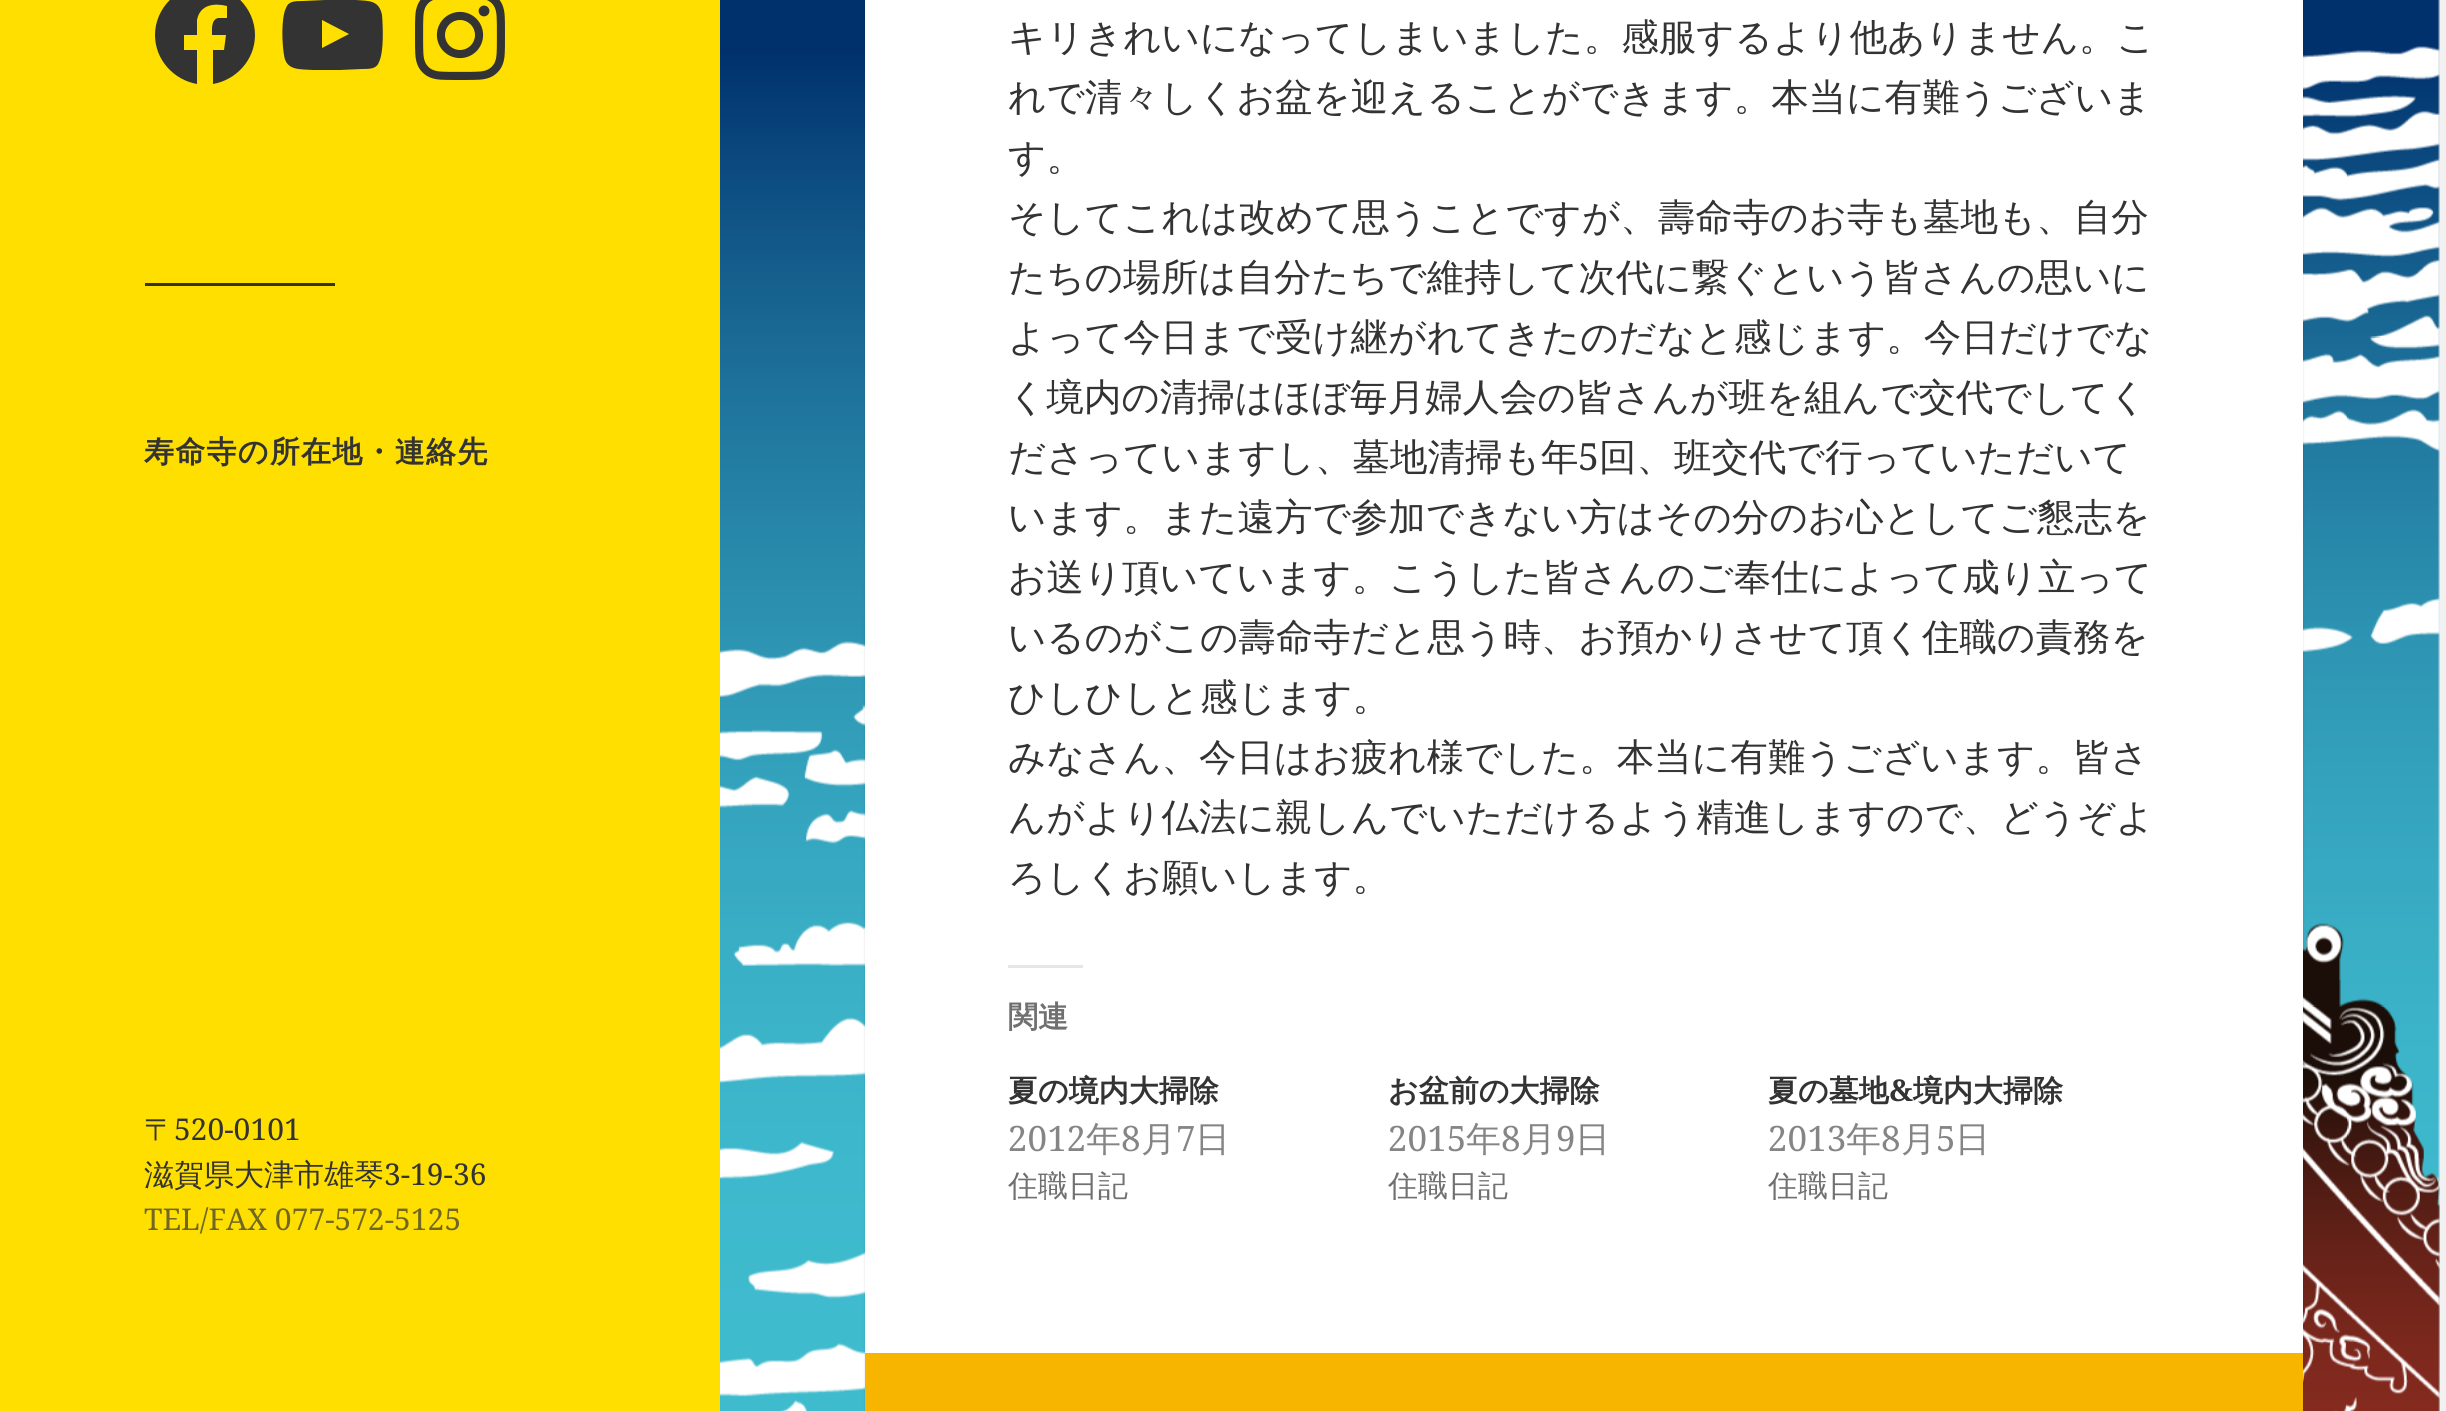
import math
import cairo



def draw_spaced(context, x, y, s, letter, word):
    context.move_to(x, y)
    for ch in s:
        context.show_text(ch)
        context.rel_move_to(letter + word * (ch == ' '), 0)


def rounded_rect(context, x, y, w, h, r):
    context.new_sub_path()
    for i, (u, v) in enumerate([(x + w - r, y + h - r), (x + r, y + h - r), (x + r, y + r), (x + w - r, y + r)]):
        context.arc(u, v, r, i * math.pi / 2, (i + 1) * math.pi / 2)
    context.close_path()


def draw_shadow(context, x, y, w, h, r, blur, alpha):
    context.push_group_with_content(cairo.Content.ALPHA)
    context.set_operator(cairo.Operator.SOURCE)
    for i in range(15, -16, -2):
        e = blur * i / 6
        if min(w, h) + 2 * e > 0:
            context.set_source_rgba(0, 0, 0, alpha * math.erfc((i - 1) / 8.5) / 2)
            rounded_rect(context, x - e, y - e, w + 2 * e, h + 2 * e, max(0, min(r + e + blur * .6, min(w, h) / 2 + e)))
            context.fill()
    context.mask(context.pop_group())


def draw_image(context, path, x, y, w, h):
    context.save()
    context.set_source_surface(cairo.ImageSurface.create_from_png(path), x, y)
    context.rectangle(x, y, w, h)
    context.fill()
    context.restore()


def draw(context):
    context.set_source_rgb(241 / 255, 241 / 255, 241 / 255)
    context.paint()
    draw_image(context, "images/1.png", 720, 0, 1720, 1411)
    context.set_source_rgb(1, 223 / 255, 0)
    context.rectangle(0, 0, 720, 1411)
    context.fill()
    context.set_source_rgb(51 / 255, 51 / 255, 51 / 255)
    context.new_path()
    context.move_to(205, -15)
    context.curve_to(178, -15, 155, 8, 155, 35)
    context.curve_to(155, 60, 174, 80, 197, 84)
    context.line_to(197, 50)
    context.line_to(184, 50)
    context.line_to(184, 35)
    context.line_to(197, 35)
    context.line_to(197, 20)
    context.curve_to(200, 4, 215, 3, 227, 6)
    context.line_to(227, 18)
    context.line_to(218, 18)
    context.curve_to(211, 20, 212, 29, 212, 35)
    context.line_to(226, 35)
    context.line_to(224, 50)
    context.line_to(213, 50)
    context.line_to(213, 84)
    context.curve_to(236, 80, 255, 60, 255, 35)
    context.curve_to(255, 8, 232, -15, 205, -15)
    context.close_path()
    context.fill()
    context.new_path()
    context.move_to(382, 15)
    context.curve_to(379, 0, 369, 1, 356, 0)
    context.line_to(325, 0)
    context.line_to(303, 1)
    context.curve_to(300, 1, 295, 1, 292, 2)
    context.curve_to(289, 3, 287, 5, 286, 8)
    context.curve_to(281, 18, 282, 44, 284, 55)
    context.curve_to(286, 71, 300, 69, 313, 70)
    context.line_to(340, 70)
    context.line_to(362, 69)
    context.curve_to(365, 69, 370, 69, 373, 68)
    context.curve_to(376, 67, 378, 65, 379, 62)
    context.curve_to(384, 52, 383, 26, 382, 15)
    context.close_path()
    context.move_to(322, 48)
    context.line_to(322, 20)
    context.line_to(349, 34)
    context.close_path()
    context.fill()
    draw_image(context, "images/2.png", 415, 0, 90, 80)
    context.rectangle(145, 283, 190, 3)
    context.fill()
    context.set_source_rgb(0, 0, 0)
    draw_shadow(context, 865, -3, 1438, 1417, 0, 1, 0.15)
    context.set_source_rgb(1, 1, 1)
    context.rectangle(865, 0, 1438, 1353)
    context.fill()
    context.set_source_rgb(230 / 255, 230 / 255, 230 / 255)
    context.rectangle(1008, 965, 75, 3)
    context.fill()
    context.set_source_rgb(248 / 255, 181 / 255, 0)
    context.rectangle(865, 1353, 1438, 58)
    context.fill()
    context.select_font_face("WenQuanYi Zen Hei", cairo.FontSlant.NORMAL, cairo.FontWeight.BOLD)
    context.set_font_size(30)
    context.set_source_rgb(51 / 255, 51 / 255, 51 / 255)
    draw_spaced(context, 144, 462, "寿命寺の所在地・連絡先", 1.25, 0)
    context.select_font_face("WenQuanYi Zen Hei Medium")
    context.move_to(144, 1140)
    context.show_text("〒")
    context.select_font_face("Noto Serif")
    context.move_to(174, 1140)
    context.show_text("520-0101")
    context.select_font_face("WenQuanYi Zen Hei Medium")
    context.move_to(144, 1185)
    context.show_text("滋賀県大津市雄琴")
    context.select_font_face("Noto Serif")
    context.move_to(384, 1185)
    context.show_text("3-19-36")
    context.set_source_rgb(112 / 255, 103 / 255, 36 / 255)
    context.move_to(144, 1230)
    context.show_text("TEL/FAX 077-572-5125")
    context.select_font_face("WenQuanYi Zen Hei Medium")
    context.set_font_size(37.5)
    context.set_source_rgb(51 / 255, 51 / 255, 51 / 255)
    context.move_to(1008, 50)
    context.show_text("キリきれいになってしまいました。感服するより他ありません。こ")
    context.move_to(1008, 110)
    context.show_text("れで清々しくお盆を迎えることができます。本当に有難うございま")
    context.move_to(1008, 170)
    context.show_text("す。")
    context.move_to(1008, 230)
    context.show_text("そしてこれは改めて思うことですが、壽命寺のお寺も墓地も、自分")
    context.move_to(1008, 290)
    context.show_text("たちの場所は自分たちで維持して次代に繋ぐという皆さんの思いに")
    context.move_to(1008, 350)
    context.show_text("よって今日まで受け継がれてきたのだなと感じます。今日だけでな")
    context.move_to(1008, 410)
    context.show_text("く境内の清掃はほぼ毎月婦人会の皆さんが班を組んで交代でしてく")
    context.move_to(1008, 470)
    context.show_text("ださっていますし、墓地清掃も年")
    context.select_font_face("Noto Serif")
    context.move_to(1578, 470)
    context.show_text("5")
    context.select_font_face("WenQuanYi Zen Hei Medium")
    context.move_to(1599, 470)
    context.show_text("回、班交代で行っていただいて")
    context.move_to(1008, 530)
    context.show_text("います。また遠方で参加できない方はその分のお心としてご懇志を")
    context.move_to(1008, 590)
    context.show_text("お送り頂いています。こうした皆さんのご奉仕によって成り立って")
    context.move_to(1008, 650)
    context.show_text("いるのがこの壽命寺だと思う時、お預かりさせて頂く住職の責務を")
    context.move_to(1008, 710)
    context.show_text("ひしひしと感じます。")
    context.move_to(1008, 770)
    context.show_text("みなさん、今日はお疲れ様でした。本当に有難うございます。皆さ")
    context.move_to(1008, 830)
    context.show_text("んがより仏法に親しんでいただけるよう精進しますので、どうぞよ")
    context.move_to(1008, 890)
    context.show_text("ろしくお願いします。")
    context.select_font_face("WenQuanYi Zen Hei", cairo.FontSlant.NORMAL, cairo.FontWeight.BOLD)
    context.set_font_size(30)
    context.set_source_rgb(112 / 255, 112 / 255, 112 / 255)
    context.move_to(1008, 1027)
    context.show_text("関連")
    context.set_source_rgb(51 / 255, 51 / 255, 51 / 255)
    context.move_to(1008, 1101)
    context.show_text("夏の境内大掃除")
    context.select_font_face("Noto Serif")
    context.set_font_size(35)
    context.set_source_rgb(133 / 255, 133 / 255, 133 / 255)
    context.move_to(1008, 1151)
    context.show_text("2012")
    context.select_font_face("WenQuanYi Zen Hei Medium")
    context.move_to(1086, 1151)
    context.show_text("年")
    context.select_font_face("Noto Serif")
    context.move_to(1121, 1151)
    context.show_text("8")
    context.select_font_face("WenQuanYi Zen Hei Medium")
    context.move_to(1141, 1151)
    context.show_text("月")
    context.select_font_face("Noto Serif")
    context.move_to(1176, 1151)
    context.show_text("7")
    context.select_font_face("WenQuanYi Zen Hei Medium")
    context.move_to(1195, 1151)
    context.show_text("日")
    context.set_font_size(30)
    context.set_source_rgb(112 / 255, 112 / 255, 112 / 255)
    context.move_to(1008, 1196)
    context.show_text("住職日記")
    context.select_font_face("WenQuanYi Zen Hei", cairo.FontSlant.NORMAL, cairo.FontWeight.BOLD)
    context.set_source_rgb(51 / 255, 51 / 255, 51 / 255)
    context.move_to(1388, 1101)
    context.show_text("お盆前の大掃除")
    context.select_font_face("Noto Serif")
    context.set_font_size(35)
    context.set_source_rgb(133 / 255, 133 / 255, 133 / 255)
    context.move_to(1388, 1151)
    context.show_text("2015")
    context.select_font_face("WenQuanYi Zen Hei Medium")
    context.move_to(1466, 1151)
    context.show_text("年")
    context.select_font_face("Noto Serif")
    context.move_to(1501, 1151)
    context.show_text("8")
    context.select_font_face("WenQuanYi Zen Hei Medium")
    context.move_to(1521, 1151)
    context.show_text("月")
    context.select_font_face("Noto Serif")
    context.move_to(1556, 1151)
    context.show_text("9")
    context.select_font_face("WenQuanYi Zen Hei Medium")
    context.move_to(1575, 1151)
    context.show_text("日")
    context.set_font_size(30)
    context.set_source_rgb(112 / 255, 112 / 255, 112 / 255)
    context.move_to(1388, 1196)
    context.show_text("住職日記")
    context.select_font_face("WenQuanYi Zen Hei", cairo.FontSlant.NORMAL, cairo.FontWeight.BOLD)
    context.set_source_rgb(51 / 255, 51 / 255, 51 / 255)
    context.move_to(1768, 1101)
    context.show_text("夏の墓地")
    context.select_font_face("Noto Serif", cairo.FontSlant.NORMAL, cairo.FontWeight.BOLD)
    context.move_to(1889, 1101)
    context.show_text("&")
    context.select_font_face("WenQuanYi Zen Hei", cairo.FontSlant.NORMAL, cairo.FontWeight.BOLD)
    context.move_to(1913, 1101)
    context.show_text("境内大掃除")
    context.select_font_face("Noto Serif")
    context.set_font_size(35)
    context.set_source_rgb(133 / 255, 133 / 255, 133 / 255)
    context.move_to(1768, 1151)
    context.show_text("2013")
    context.select_font_face("WenQuanYi Zen Hei Medium")
    context.move_to(1846, 1151)
    context.show_text("年")
    context.select_font_face("Noto Serif")
    context.move_to(1881, 1151)
    context.show_text("8")
    context.select_font_face("WenQuanYi Zen Hei Medium")
    context.move_to(1901, 1151)
    context.show_text("月")
    context.select_font_face("Noto Serif")
    context.move_to(1936, 1151)
    context.show_text("5")
    context.select_font_face("WenQuanYi Zen Hei Medium")
    context.move_to(1955, 1151)
    context.show_text("日")
    context.set_font_size(30)
    context.set_source_rgb(112 / 255, 112 / 255, 112 / 255)
    context.move_to(1768, 1196)
    context.show_text("住職日記")


surface = cairo.ImageSurface(cairo.Format.RGB24, 2446, 1411)
context = cairo.Context(surface)
options = cairo.FontOptions()
options.set_hint_metrics(cairo.HintMetrics.OFF)
options.set_hint_style(cairo.HintStyle.NONE)
context.set_font_options(options)
context.set_miter_limit(4)
draw(context)
surface.write_to_png("out.png")
